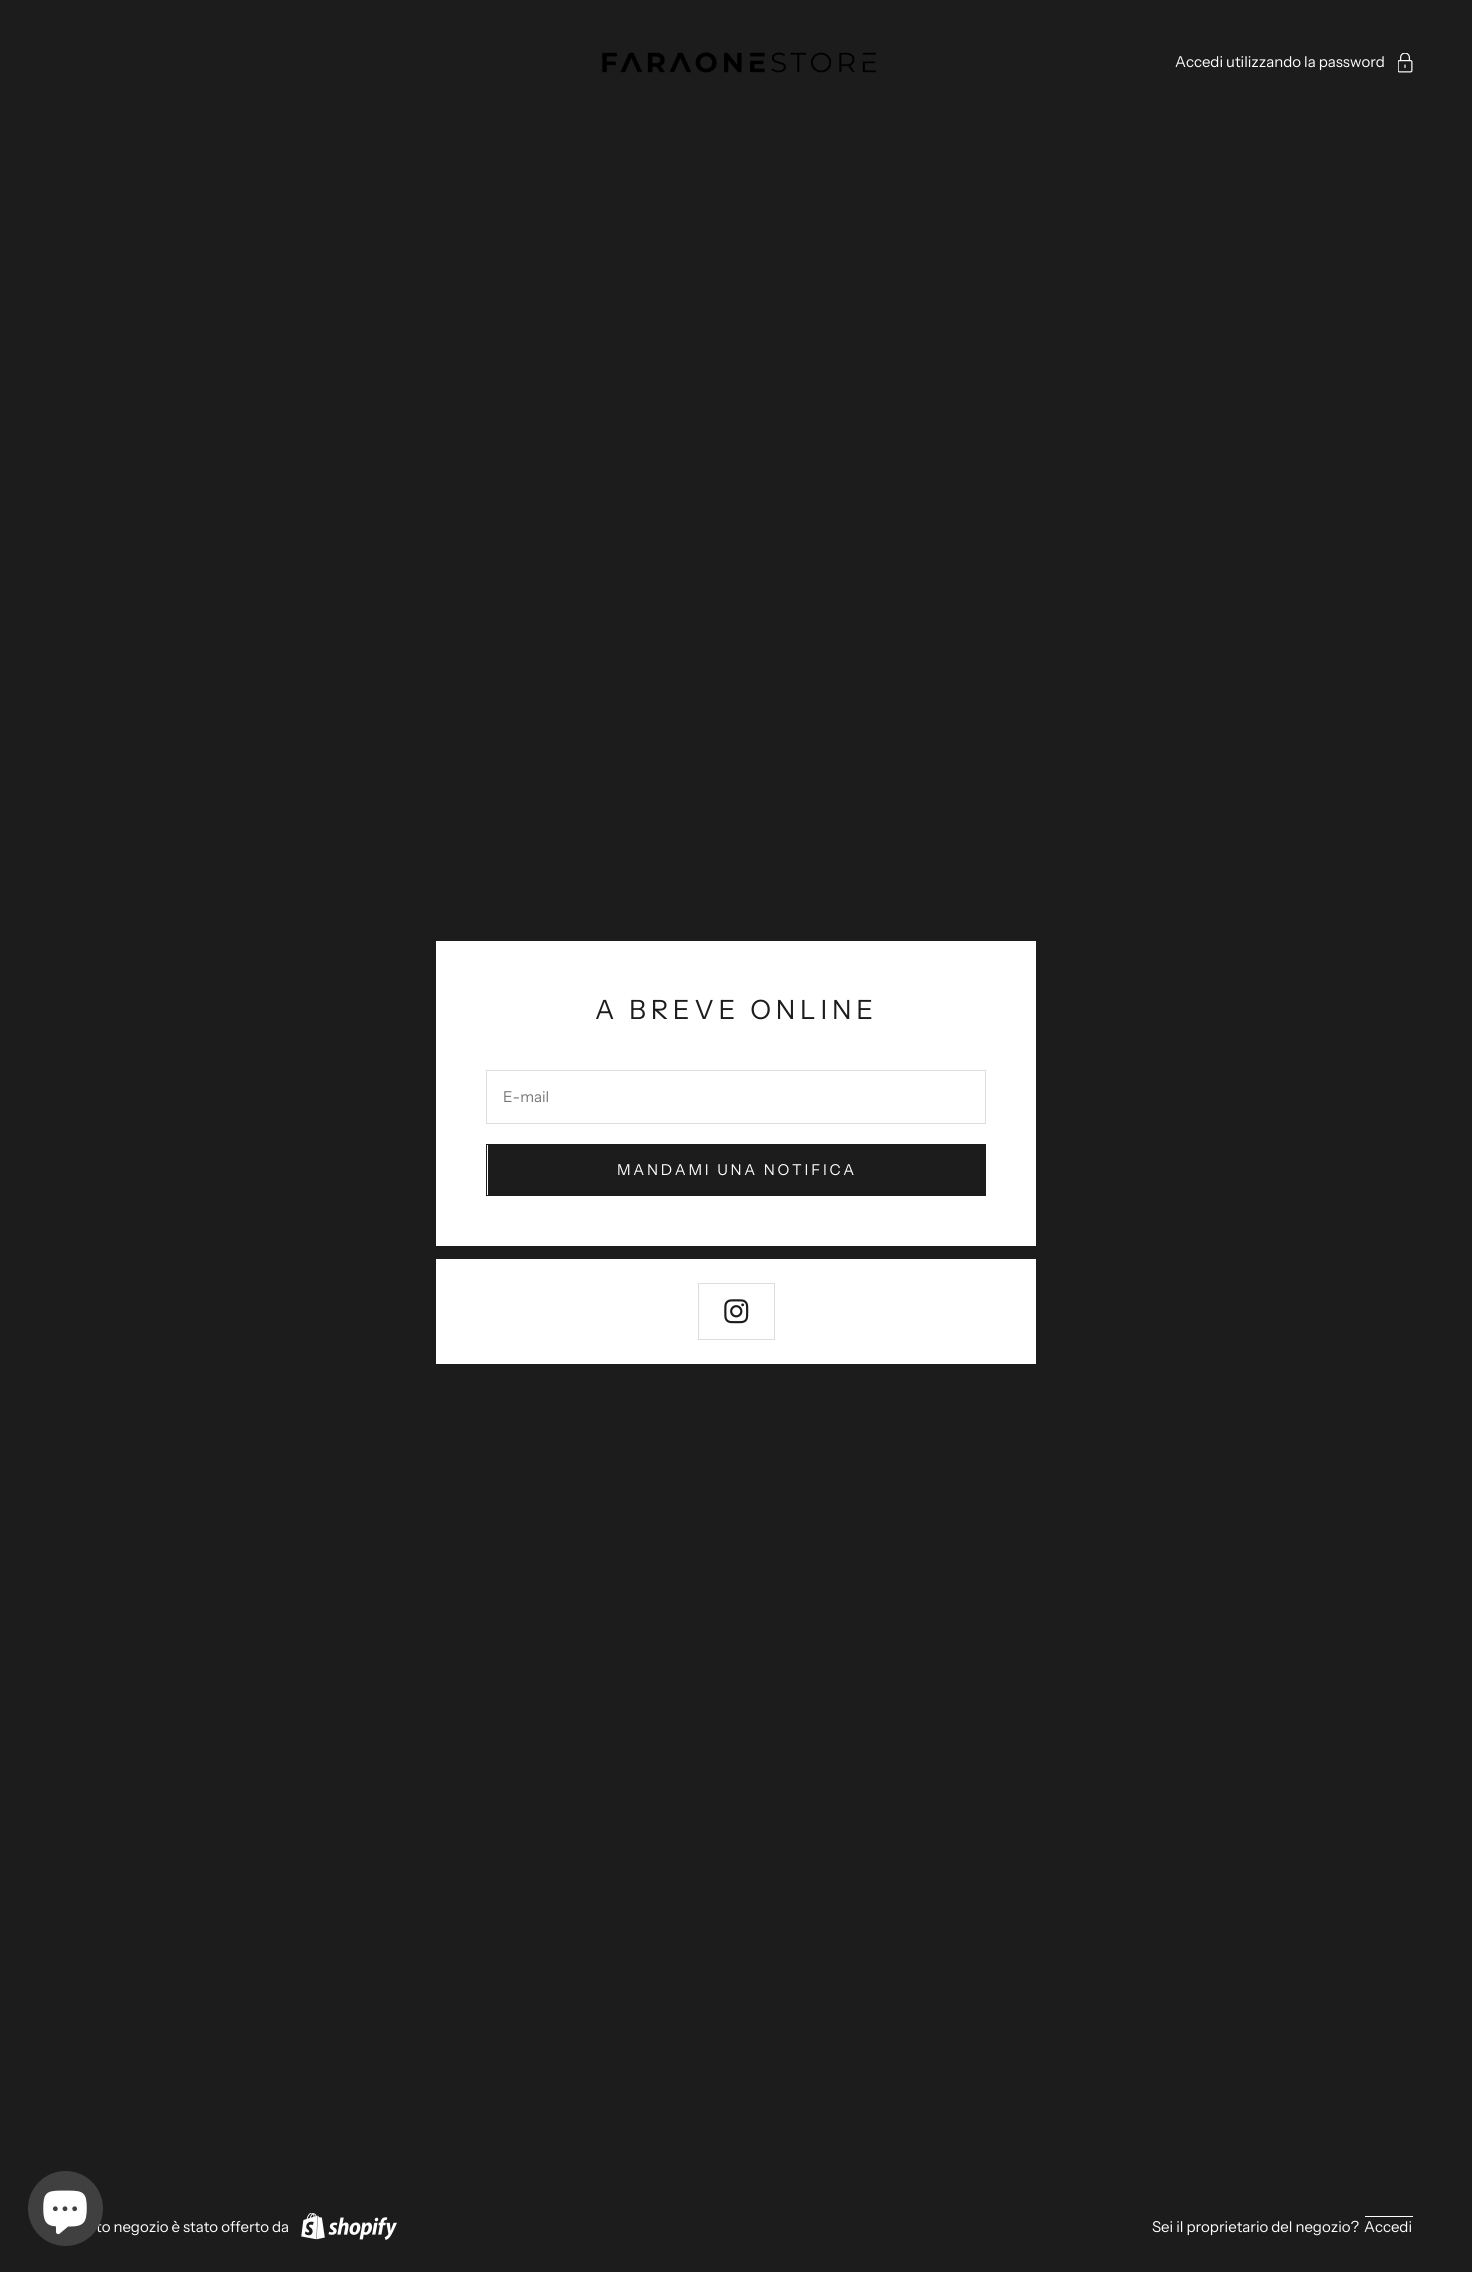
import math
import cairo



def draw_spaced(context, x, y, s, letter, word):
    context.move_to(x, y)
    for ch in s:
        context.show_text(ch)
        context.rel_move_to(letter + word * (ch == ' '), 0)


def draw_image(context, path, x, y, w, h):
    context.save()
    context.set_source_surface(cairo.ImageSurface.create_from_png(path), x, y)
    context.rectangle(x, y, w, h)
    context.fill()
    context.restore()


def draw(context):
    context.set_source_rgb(28 / 255, 28 / 255, 28 / 255)
    context.paint()
    draw_image(context, "images/2.png", 602, 52, 274, 21)
    draw_image(context, "images/3.png", 1398, 53, 15, 20)
    context.set_source_rgb(1, 1, 1)
    context.rectangle(436, 941, 600, 305)
    context.fill()
    context.rectangle(486.5, 1070.5, 499, 53)
    context.set_source_rgb(221 / 255, 221 / 255, 221 / 255)
    context.set_line_width(1)
    context.stroke()
    context.set_source_rgb(28 / 255, 28 / 255, 28 / 255)
    context.rectangle(488, 1145, 497, 50)
    context.fill()
    context.rectangle(486.5, 1144.5, 499, 51)
    context.stroke()
    context.set_source_rgb(1, 1, 1)
    context.rectangle(436, 1259, 600, 105)
    context.fill()
    context.rectangle(698.5, 1283.5, 76, 56)
    context.set_source_rgb(221 / 255, 221 / 255, 221 / 255)
    context.stroke()
    draw_image(context, "images/4.png", 724, 1299, 25, 25)
    draw_image(context, "images/5.png", 301, 2213, 96, 27)
    context.set_source_rgb(1, 1, 1)
    context.rectangle(1365, 2216, 48, 1)
    context.fill()
    context.select_font_face("Instrument Sans")
    context.set_font_size(15)
    context.move_to(1175, 67)
    context.show_text("Accedi utilizzando la password")
    context.set_font_size(26.5)
    context.set_source_rgb(28 / 255, 28 / 255, 28 / 255)
    draw_spaced(context, 595, 1019, "A BREVE ONLINE", 4.75, 0)
    context.set_font_size(15)
    context.set_source_rgb(119 / 255, 119 / 255, 119 / 255)
    context.move_to(503, 1102)
    context.show_text("E-mail")
    context.set_source_rgb(1, 1, 1)
    draw_spaced(context, 617, 1175, "MANDAMI UNA NOTIFICA", 2.75, 0)
    context.move_to(96, 2232)
    context.show_text("to negozio è stato offerto da")
    context.set_source_rgb(64 / 255, 64 / 255, 64 / 255)
    context.new_path()
    context.arc(65.5, 2208.5, 37.5, 0, 2 * math.pi)
    context.fill()
    draw_image(context, "images/1.png", 43, 2190, 44, 45)
    context.set_source_rgb(1, 1, 1)
    context.move_to(1152, 2232)
    context.show_text("Sei il proprietario del negozio?")
    context.move_to(1364, 2232)
    context.show_text("Accedi")


surface = cairo.ImageSurface(cairo.Format.RGB24, 1472, 2272)
context = cairo.Context(surface)
options = cairo.FontOptions()
options.set_hint_metrics(cairo.HintMetrics.OFF)
options.set_hint_style(cairo.HintStyle.NONE)
context.set_font_options(options)
context.set_miter_limit(4)
draw(context)
surface.write_to_png("out.png")
